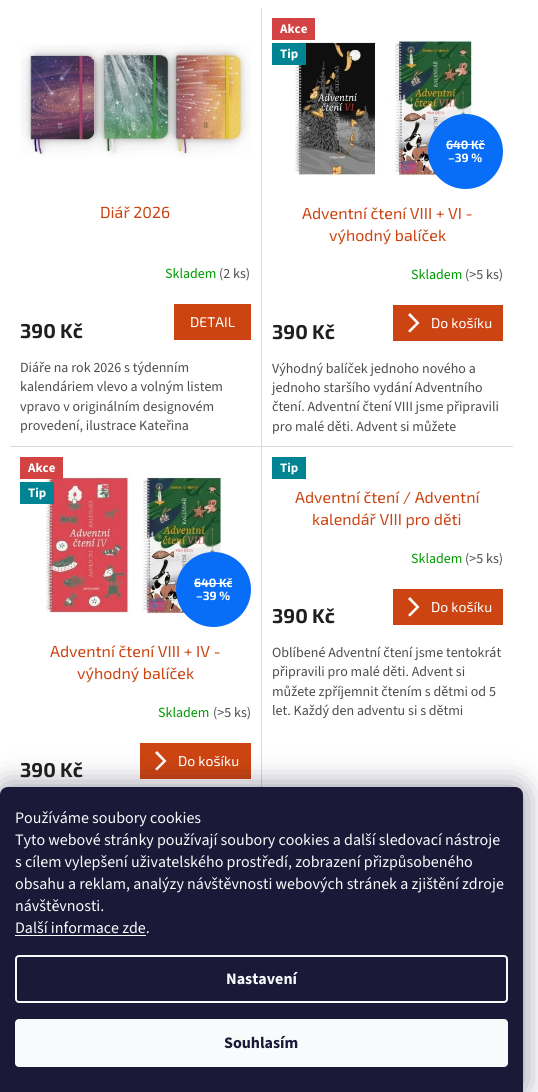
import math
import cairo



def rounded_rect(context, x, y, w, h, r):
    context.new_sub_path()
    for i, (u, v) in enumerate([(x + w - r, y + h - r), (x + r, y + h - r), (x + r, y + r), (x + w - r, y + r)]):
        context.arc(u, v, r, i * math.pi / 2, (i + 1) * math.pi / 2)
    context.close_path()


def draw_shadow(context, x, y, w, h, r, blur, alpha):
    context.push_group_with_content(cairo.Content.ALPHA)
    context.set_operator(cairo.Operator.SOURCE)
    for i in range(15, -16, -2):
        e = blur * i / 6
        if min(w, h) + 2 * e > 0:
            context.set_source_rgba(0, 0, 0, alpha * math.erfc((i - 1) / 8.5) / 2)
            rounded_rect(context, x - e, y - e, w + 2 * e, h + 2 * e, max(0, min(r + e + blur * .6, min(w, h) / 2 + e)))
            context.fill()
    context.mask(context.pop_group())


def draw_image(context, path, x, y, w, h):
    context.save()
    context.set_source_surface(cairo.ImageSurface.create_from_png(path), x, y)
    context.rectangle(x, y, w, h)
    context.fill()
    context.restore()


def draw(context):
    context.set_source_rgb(1, 1, 1)
    context.paint()
    context.set_source_rgb(218 / 255, 218 / 255, 218 / 255)
    context.rectangle(261, 8, 1, 438)
    context.fill()
    draw_image(context, "images/1.png", 20, 44, 231, 114)
    context.set_source_rgb(204 / 255, 68 / 255, 17 / 255)
    context.rectangle(174, 304, 77, 36)
    context.fill()
    context.set_source_rgb(211 / 255, 67 / 255, 67 / 255)
    context.rectangle(272, 18, 43, 22)
    context.fill()
    draw_image(context, "images/2.png", 294, 40, 179, 136)
    context.set_source_rgb(0, 131 / 255, 146 / 255)
    context.rectangle(272, 43, 34, 22)
    context.fill()
    context.set_source_rgb(8 / 255, 109 / 255, 247 / 255)
    context.arc(465.5, 151.5, 37.5, 0, 2 * math.pi)
    context.fill()
    context.set_source_rgb(1, 1, 1)
    context.rectangle(446, 144, 39, 1)
    context.fill()
    context.set_source_rgb(204 / 255, 68 / 255, 17 / 255)
    context.rectangle(393, 305, 110, 36)
    context.fill()
    context.set_source_rgb(1, 1, 1)
    context.new_path()
    context.move_to(410, 332.5)
    context.line_to(408, 331)
    context.line_to(416, 323)
    context.line_to(408, 315)
    context.line_to(410, 313)
    context.line_to(419.5, 323)
    context.close_path()
    context.fill()
    context.set_source_rgb(218 / 255, 218 / 255, 218 / 255)
    context.rectangle(10, 446, 503, 1)
    context.fill()
    context.rectangle(261, 446, 1, 341)
    context.fill()
    draw_image(context, "images/3.png", 46, 474, 176, 140)
    context.set_source_rgb(211 / 255, 67 / 255, 67 / 255)
    context.rectangle(20, 457, 43, 22)
    context.fill()
    context.set_source_rgb(0, 131 / 255, 146 / 255)
    context.rectangle(20, 482, 34, 22)
    context.fill()
    context.set_source_rgb(8 / 255, 109 / 255, 247 / 255)
    context.arc(213.5, 589.5, 37.5, 0, 2 * math.pi)
    context.fill()
    context.set_source_rgb(1, 1, 1)
    context.rectangle(194, 583, 38, 1)
    context.fill()
    context.set_source_rgb(204 / 255, 68 / 255, 17 / 255)
    context.rectangle(140, 743, 111, 36)
    context.fill()
    context.set_source_rgb(1, 1, 1)
    context.new_path()
    context.move_to(157, 770.5)
    context.line_to(155, 769)
    context.line_to(163, 761)
    context.line_to(155, 753)
    context.line_to(157, 751)
    context.line_to(166.5, 761)
    context.close_path()
    context.fill()
    context.set_source_rgb(0, 131 / 255, 146 / 255)
    context.rectangle(272, 457, 34, 22)
    context.fill()
    context.set_source_rgb(204 / 255, 68 / 255, 17 / 255)
    context.rectangle(393, 589, 110, 36)
    context.fill()
    context.set_source_rgb(1, 1, 1)
    context.new_path()
    context.move_to(410, 616.5)
    context.line_to(408, 615)
    context.line_to(416, 607)
    context.line_to(408, 599)
    context.line_to(410, 597)
    context.line_to(419.5, 607)
    context.close_path()
    context.fill()
    context.set_source_rgb(27 / 255, 25 / 255, 57 / 255)
    draw_shadow(context, 0, 787, 523, 305, 8, 15, 0.5)
    context.set_source_rgb(26 / 255, 25 / 255, 55 / 255)
    context.new_path()
    context.move_to(8, 787)
    context.line_to(515, 787)
    context.curve_to(519.5, 787, 523, 790.5, 523, 795)
    context.line_to(523, 1092)
    context.line_to(0, 1092)
    context.line_to(0, 795)
    context.curve_to(0, 790.5, 3.5, 787, 8, 787)
    context.close_path()
    context.fill()
    context.set_source_rgb(248 / 255, 250 / 255, 251 / 255)
    context.rectangle(15, 935, 131, 1)
    context.fill()
    rounded_rect(context, 16, 956, 491, 46, 3)
    context.stroke()
    rounded_rect(context, 15, 1019, 493, 48, 4)
    context.fill()
    context.select_font_face("Exo 2")
    context.set_font_size(16)
    context.set_source_rgb(204 / 255, 68 / 255, 17 / 255)
    context.move_to(100, 218)
    context.show_text("Diář 2026")
    context.select_font_face("Source Sans 3")
    context.set_font_size(14)
    context.set_source_rgb(0, 153 / 255, 1 / 255)
    context.move_to(165, 278)
    context.show_text("Skladem")
    context.set_source_rgb(77 / 255, 77 / 255, 77 / 255)
    context.move_to(219, 278)
    context.show_text("(2 ks)")
    context.select_font_face("Exo 2", cairo.FontSlant.NORMAL, cairo.FontWeight.BOLD)
    context.set_font_size(20)
    context.set_source_rgb(31 / 255, 31 / 255, 31 / 255)
    context.move_to(20, 338)
    context.show_text("390 Kč")
    context.select_font_face("Exo 2")
    context.set_font_size(14)
    context.set_source_rgb(1, 1, 1)
    context.move_to(190, 327)
    context.show_text("DETAIL")
    context.select_font_face("Source Sans 3")
    context.set_source_rgb(77 / 255, 77 / 255, 77 / 255)
    context.move_to(20, 372)
    context.show_text("Diáře na rok 2026 s týdenním")
    context.move_to(20, 391)
    context.show_text("kalendáriem vlevo a volným listem")
    context.move_to(20, 411)
    context.show_text("vpravo v originálním designovém")
    context.move_to(20, 430)
    context.show_text("provedení, ilustrace Kateřina")
    context.select_font_face("Source Sans 3", cairo.FontSlant.NORMAL, cairo.FontWeight.BOLD)
    context.set_font_size(13)
    context.set_source_rgb(1, 1, 1)
    context.move_to(280, 33)
    context.show_text("Akce")
    context.move_to(280, 58)
    context.show_text("Tip")
    context.select_font_face("Exo 2", cairo.FontSlant.NORMAL, cairo.FontWeight.BOLD)
    context.set_font_size(12)
    context.move_to(446, 149)
    context.show_text("640 Kč")
    context.move_to(448, 162)
    context.show_text("–39 %")
    context.select_font_face("Exo 2")
    context.set_font_size(16)
    context.set_source_rgb(204 / 255, 68 / 255, 17 / 255)
    context.move_to(302, 219)
    context.show_text("Adventní čtení VIII + VI -")
    context.move_to(329, 241)
    context.show_text("výhodný balíček")
    context.select_font_face("Source Sans 3")
    context.set_font_size(14)
    context.set_source_rgb(0, 153 / 255, 1 / 255)
    context.move_to(411, 279)
    context.show_text("Skladem")
    context.set_source_rgb(77 / 255, 77 / 255, 77 / 255)
    context.move_to(465, 279)
    context.show_text("(>5 ks)")
    context.select_font_face("Exo 2", cairo.FontSlant.NORMAL, cairo.FontWeight.BOLD)
    context.set_font_size(20)
    context.set_source_rgb(31 / 255, 31 / 255, 31 / 255)
    context.move_to(272, 339)
    context.show_text("390 Kč")
    context.select_font_face("Exo 2")
    context.set_font_size(14)
    context.set_source_rgb(1, 1, 1)
    context.move_to(431, 328)
    context.show_text("Do košíku")
    context.select_font_face("Source Sans 3")
    context.set_source_rgb(77 / 255, 77 / 255, 77 / 255)
    context.move_to(272, 373)
    context.show_text("Výhodný balíček jednoho nového a")
    context.move_to(272, 392)
    context.show_text("jednoho staršího vydání Adventního")
    context.move_to(272, 411)
    context.show_text("čtení. Adventní čtení VIII jsme připravili")
    context.move_to(272, 431)
    context.show_text("pro malé děti. Advent si můžete")
    context.select_font_face("Source Sans 3", cairo.FontSlant.NORMAL, cairo.FontWeight.BOLD)
    context.set_font_size(13)
    context.set_source_rgb(1, 1, 1)
    context.move_to(28, 472)
    context.show_text("Akce")
    context.move_to(28, 497)
    context.show_text("Tip")
    context.select_font_face("Exo 2", cairo.FontSlant.NORMAL, cairo.FontWeight.BOLD)
    context.set_font_size(12)
    context.move_to(194, 587)
    context.show_text("640 Kč")
    context.move_to(196, 600)
    context.show_text("–39 %")
    context.select_font_face("Exo 2")
    context.set_font_size(16)
    context.set_source_rgb(204 / 255, 68 / 255, 17 / 255)
    context.move_to(50, 657)
    context.show_text("Adventní čtení VIII + IV -")
    context.move_to(77, 679)
    context.show_text("výhodný balíček")
    context.select_font_face("Source Sans 3")
    context.set_font_size(14)
    context.set_source_rgb(0, 153 / 255, 1 / 255)
    context.move_to(158, 717)
    context.show_text("Skladem")
    context.set_source_rgb(77 / 255, 77 / 255, 77 / 255)
    context.move_to(213, 717)
    context.show_text("(>5 ks)")
    context.select_font_face("Exo 2", cairo.FontSlant.NORMAL, cairo.FontWeight.BOLD)
    context.set_font_size(20)
    context.set_source_rgb(31 / 255, 31 / 255, 31 / 255)
    context.move_to(20, 777)
    context.show_text("390 Kč")
    context.select_font_face("Exo 2")
    context.set_font_size(14)
    context.set_source_rgb(1, 1, 1)
    context.move_to(178, 766)
    context.show_text("Do košíku")
    context.select_font_face("Source Sans 3", cairo.FontSlant.NORMAL, cairo.FontWeight.BOLD)
    context.set_font_size(13)
    context.move_to(280, 472)
    context.show_text("Tip")
    context.select_font_face("Exo 2")
    context.set_font_size(16)
    context.set_source_rgb(204 / 255, 68 / 255, 17 / 255)
    context.move_to(295, 503)
    context.show_text("Adventní čtení / Adventní")
    context.move_to(312, 525)
    context.show_text("kalendář VIII pro děti")
    context.select_font_face("Source Sans 3")
    context.set_font_size(14)
    context.set_source_rgb(0, 153 / 255, 1 / 255)
    context.move_to(411, 563)
    context.show_text("Skladem")
    context.set_source_rgb(77 / 255, 77 / 255, 77 / 255)
    context.move_to(465, 563)
    context.show_text("(>5 ks)")
    context.select_font_face("Exo 2", cairo.FontSlant.NORMAL, cairo.FontWeight.BOLD)
    context.set_font_size(20)
    context.set_source_rgb(31 / 255, 31 / 255, 31 / 255)
    context.move_to(272, 623)
    context.show_text("390 Kč")
    context.select_font_face("Exo 2")
    context.set_font_size(14)
    context.set_source_rgb(1, 1, 1)
    context.move_to(431, 612)
    context.show_text("Do košíku")
    context.select_font_face("Source Sans 3")
    context.set_source_rgb(77 / 255, 77 / 255, 77 / 255)
    context.move_to(272, 657)
    context.show_text("Oblíbené Adventní čtení jsme tentokrát")
    context.move_to(272, 676)
    context.show_text("připravili pro malé děti. Advent si")
    context.move_to(272, 696)
    context.show_text("můžete zpříjemnit čtením s dětmi od 5")
    context.move_to(272, 715)
    context.show_text("let. Každý den adventu si s dětmi")
    context.set_font_size(16)
    context.set_source_rgb(248 / 255, 250 / 255, 251 / 255)
    context.move_to(15, 823)
    context.show_text("Používáme soubory cookies")
    context.move_to(15, 845)
    context.show_text("Tyto webové stránky používají soubory cookies a další sledovací nástroje")
    context.move_to(15, 867)
    context.show_text("s cílem vylepšení uživatelského prostředí, zobrazení přizpůsobeného")
    context.move_to(15, 889)
    context.show_text("obsahu a reklam, analýzy návštěvnosti webových stránek a zjištění zdroje")
    context.move_to(15, 911)
    context.show_text("návštěvnosti.")
    context.move_to(15, 933)
    context.show_text("Další informace zde.")
    context.select_font_face("Source Sans 3", cairo.FontSlant.NORMAL, cairo.FontWeight.BOLD)
    context.move_to(226, 984)
    context.show_text("Nastavení")
    context.set_source_rgb(26 / 255, 25 / 255, 55 / 255)
    context.move_to(224, 1048)
    context.show_text("Souhlasím")


surface = cairo.ImageSurface(cairo.Format.RGB24, 538, 1092)
context = cairo.Context(surface)
options = cairo.FontOptions()
options.set_hint_metrics(cairo.HintMetrics.OFF)
options.set_hint_style(cairo.HintStyle.NONE)
context.set_font_options(options)
context.set_miter_limit(4)
draw(context)
surface.write_to_png("out.png")
